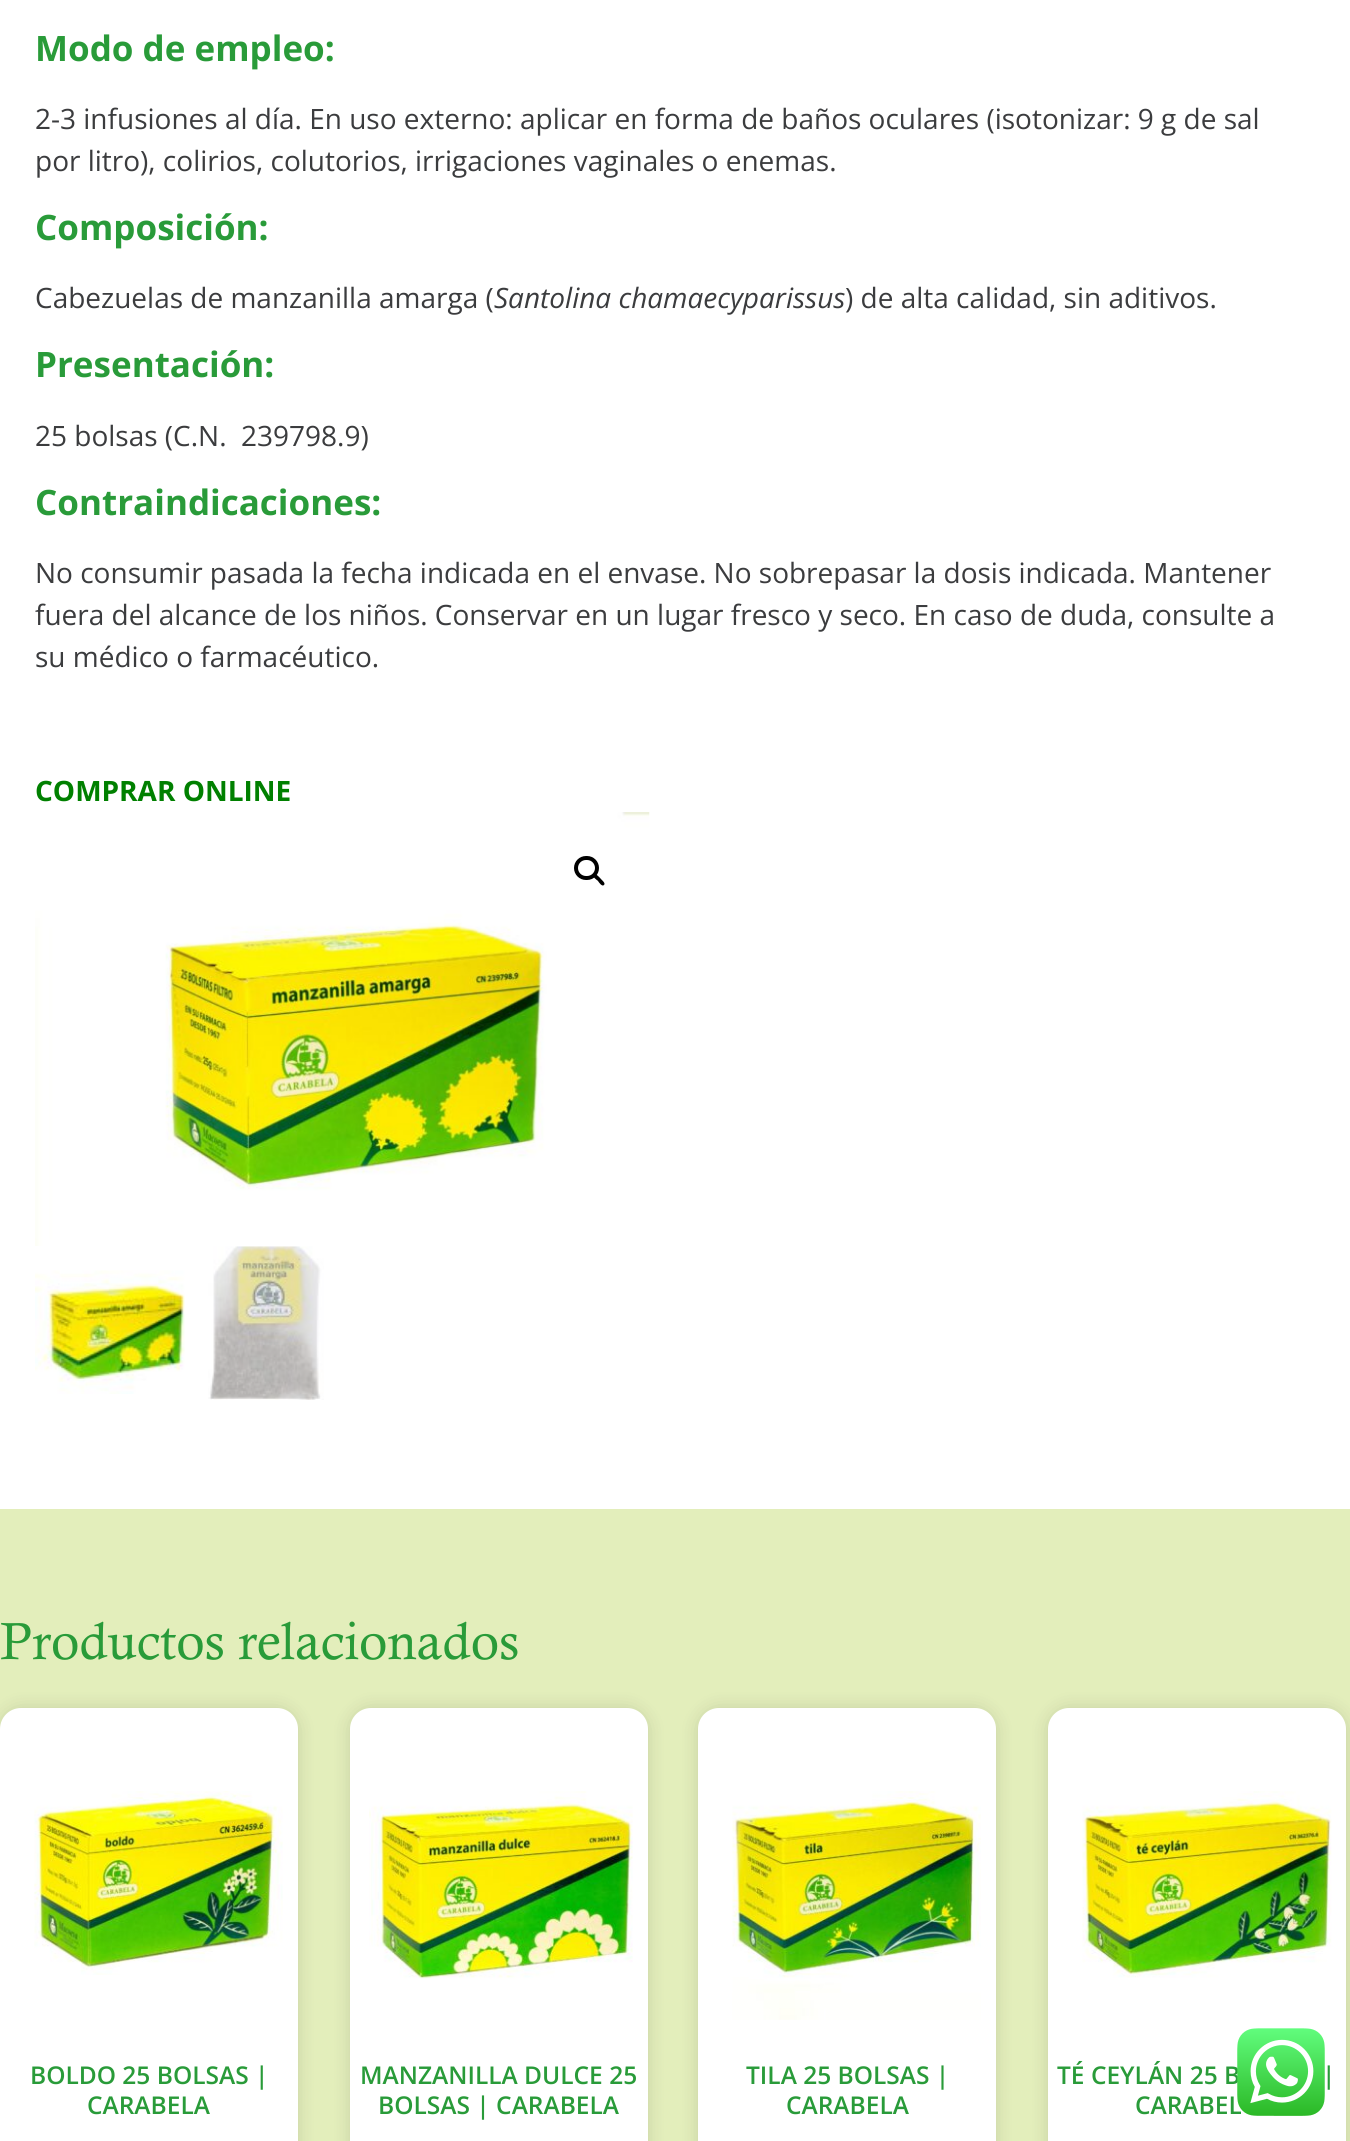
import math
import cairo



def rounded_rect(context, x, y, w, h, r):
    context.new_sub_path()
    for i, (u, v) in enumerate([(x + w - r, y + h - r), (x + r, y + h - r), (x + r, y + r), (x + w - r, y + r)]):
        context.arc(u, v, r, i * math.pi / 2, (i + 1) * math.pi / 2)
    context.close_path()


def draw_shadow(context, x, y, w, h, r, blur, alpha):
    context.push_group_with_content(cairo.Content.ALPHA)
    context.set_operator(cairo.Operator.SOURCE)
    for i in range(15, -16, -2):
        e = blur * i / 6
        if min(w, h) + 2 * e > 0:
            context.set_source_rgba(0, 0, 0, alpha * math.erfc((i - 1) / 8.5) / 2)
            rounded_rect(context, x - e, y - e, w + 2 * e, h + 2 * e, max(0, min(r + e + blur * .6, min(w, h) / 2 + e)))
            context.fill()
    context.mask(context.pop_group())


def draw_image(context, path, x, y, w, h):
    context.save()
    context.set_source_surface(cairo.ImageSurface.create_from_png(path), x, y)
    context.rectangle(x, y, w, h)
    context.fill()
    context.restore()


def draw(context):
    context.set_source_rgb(1, 1, 1)
    context.paint()
    draw_image(context, "images/1.png", 35, 812, 615, 434)
    rounded_rect(context, 576, 858, 21, 20, 10)
    context.set_source_rgb(0, 0, 0)
    context.set_line_width(4)
    context.stroke()
    context.new_path()
    context.move_to(594, 875)
    context.curve_to(596, 873, 599.5, 877.5, 600.5, 878.5)
    context.curve_to(601.5, 880, 606, 883, 604, 885)
    context.curve_to(602, 887, 599, 882.5, 598, 881)
    context.curve_to(597, 880, 592, 877, 594, 875)
    context.close_path()
    context.fill()
    draw_image(context, "images/2.png", 35, 1270, 150, 124)
    draw_image(context, "images/3.png", 208, 1246, 116, 154)
    context.set_source_rgb(227 / 255, 238 / 255, 187 / 255)
    context.rectangle(0, 1509, 1350, 632)
    context.fill()
    context.set_source_rgb(0, 0, 0)
    draw_shadow(context, 0, 1708, 298, 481, 21, 9, 0.13)
    context.set_source_rgb(1, 1, 1)
    rounded_rect(context, 2, 1710, 294, 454, 19)
    context.fill_preserve()
    context.stroke()
    draw_image(context, "images/4.png", 34, 1791, 249, 184)
    context.set_source_rgb(0, 0, 0)
    draw_shadow(context, 350, 1708, 298, 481, 21, 9, 0.13)
    context.set_source_rgb(1, 1, 1)
    rounded_rect(context, 352, 1710, 294, 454, 19)
    context.fill_preserve()
    context.stroke()
    draw_image(context, "images/5.png", 369, 1791, 264, 188)
    context.set_source_rgb(0, 0, 0)
    draw_shadow(context, 698, 1708, 298, 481, 21, 9, 0.13)
    context.set_source_rgb(1, 1, 1)
    rounded_rect(context, 700, 1710, 294, 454, 19)
    context.fill_preserve()
    context.stroke()
    draw_image(context, "images/6.png", 732, 1791, 249, 229)
    context.set_source_rgb(0, 0, 0)
    draw_shadow(context, 1048, 1708, 298, 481, 21, 9, 0.13)
    context.set_source_rgb(1, 1, 1)
    rounded_rect(context, 1050, 1710, 294, 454, 19)
    context.fill_preserve()
    context.stroke()
    draw_image(context, "images/7.png", 1082, 1791, 250, 187)
    context.select_font_face("Open Sans", cairo.FontSlant.NORMAL, cairo.FontWeight.BOLD)
    context.set_font_size(35)
    context.set_source_rgb(41 / 255, 155 / 255, 57 / 255)
    context.move_to(35, 61)
    context.show_text("Modo de empleo:")
    context.select_font_face("Open Sans")
    context.set_font_size(28)
    context.set_source_rgb(59 / 255, 60 / 255, 62 / 255)
    context.move_to(35, 129)
    context.show_text("2-3 infusiones al día. En uso externo: aplicar en forma de baños oculares (isotonizar: 9 g de sal")
    context.move_to(35, 171)
    context.show_text("por litro), colirios, colutorios, irrigaciones vaginales o enemas.")
    context.select_font_face("Open Sans", cairo.FontSlant.NORMAL, cairo.FontWeight.BOLD)
    context.set_font_size(35)
    context.set_source_rgb(41 / 255, 155 / 255, 57 / 255)
    context.move_to(35, 240)
    context.show_text("Composición:")
    context.select_font_face("Open Sans")
    context.set_font_size(28)
    context.set_source_rgb(59 / 255, 60 / 255, 62 / 255)
    context.move_to(35, 308)
    context.show_text("Cabezuelas de manzanilla amarga (")
    context.select_font_face("Open Sans", cairo.FontSlant.ITALIC)
    context.move_to(494, 308)
    context.show_text("Santolina chamaecyparissus")
    context.select_font_face("Open Sans")
    context.move_to(845, 308)
    context.show_text(") de alta calidad, sin aditivos.")
    context.select_font_face("Open Sans", cairo.FontSlant.NORMAL, cairo.FontWeight.BOLD)
    context.set_font_size(35)
    context.set_source_rgb(41 / 255, 155 / 255, 57 / 255)
    context.move_to(35, 377)
    context.show_text("Presentación:")
    context.select_font_face("Open Sans")
    context.set_font_size(28)
    context.set_source_rgb(59 / 255, 60 / 255, 62 / 255)
    context.move_to(35, 446)
    context.show_text("25 bolsas (C.N.")
    context.move_to(241, 446)
    context.show_text("239798.9)")
    context.select_font_face("Open Sans", cairo.FontSlant.NORMAL, cairo.FontWeight.BOLD)
    context.set_font_size(35)
    context.set_source_rgb(41 / 255, 155 / 255, 57 / 255)
    context.move_to(35, 515)
    context.show_text("Contraindicaciones:")
    context.select_font_face("Open Sans")
    context.set_font_size(28)
    context.set_source_rgb(59 / 255, 60 / 255, 62 / 255)
    context.move_to(35, 583)
    context.show_text("No consumir pasada la fecha indicada en el envase. No sobrepasar la dosis indicada. Mantener")
    context.move_to(35, 625)
    context.show_text("fuera del alcance de los niños. Conservar en un lugar fresco y seco. En caso de duda, consulte a")
    context.move_to(35, 667)
    context.show_text("su médico o farmacéutico.")
    context.select_font_face("Open Sans", cairo.FontSlant.NORMAL, cairo.FontWeight.BOLD)
    context.set_source_rgb(0, 128 / 255, 0)
    context.move_to(35, 801)
    context.show_text("COMPRAR ONLINE")
    context.select_font_face("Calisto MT")
    context.set_font_size(52.5)
    context.set_source_rgb(41 / 255, 155 / 255, 57 / 255)
    context.move_to(0, 1659)
    context.show_text("Productos relacionados")
    context.select_font_face("Open Sans SemiBold")
    context.set_font_size(24.5)
    context.move_to(30, 2084)
    context.show_text("BOLDO 25 BOLSAS |")
    context.move_to(87, 2114)
    context.show_text("CARABELA")
    context.move_to(360, 2084)
    context.show_text("MANZANILLA DULCE 25")
    context.move_to(378, 2114)
    context.show_text("BOLSAS | CARABELA")
    context.move_to(746, 2084)
    context.show_text("TILA 25 BOLSAS |")
    context.move_to(786, 2114)
    context.show_text("CARABELA")
    context.move_to(1057, 2084)
    context.show_text("TÉ CEYLÁN 25 B")
    context.move_to(1322, 2084)
    context.show_text("|")
    context.move_to(1135, 2114)
    context.show_text("CARABEL")
    draw_image(context, "images/8.png", 1237, 2028, 88, 88)


surface = cairo.ImageSurface(cairo.Format.RGB24, 1350, 2141)
context = cairo.Context(surface)
options = cairo.FontOptions()
options.set_hint_metrics(cairo.HintMetrics.OFF)
options.set_hint_style(cairo.HintStyle.NONE)
context.set_font_options(options)
context.set_miter_limit(4)
draw(context)
surface.write_to_png("out.png")
